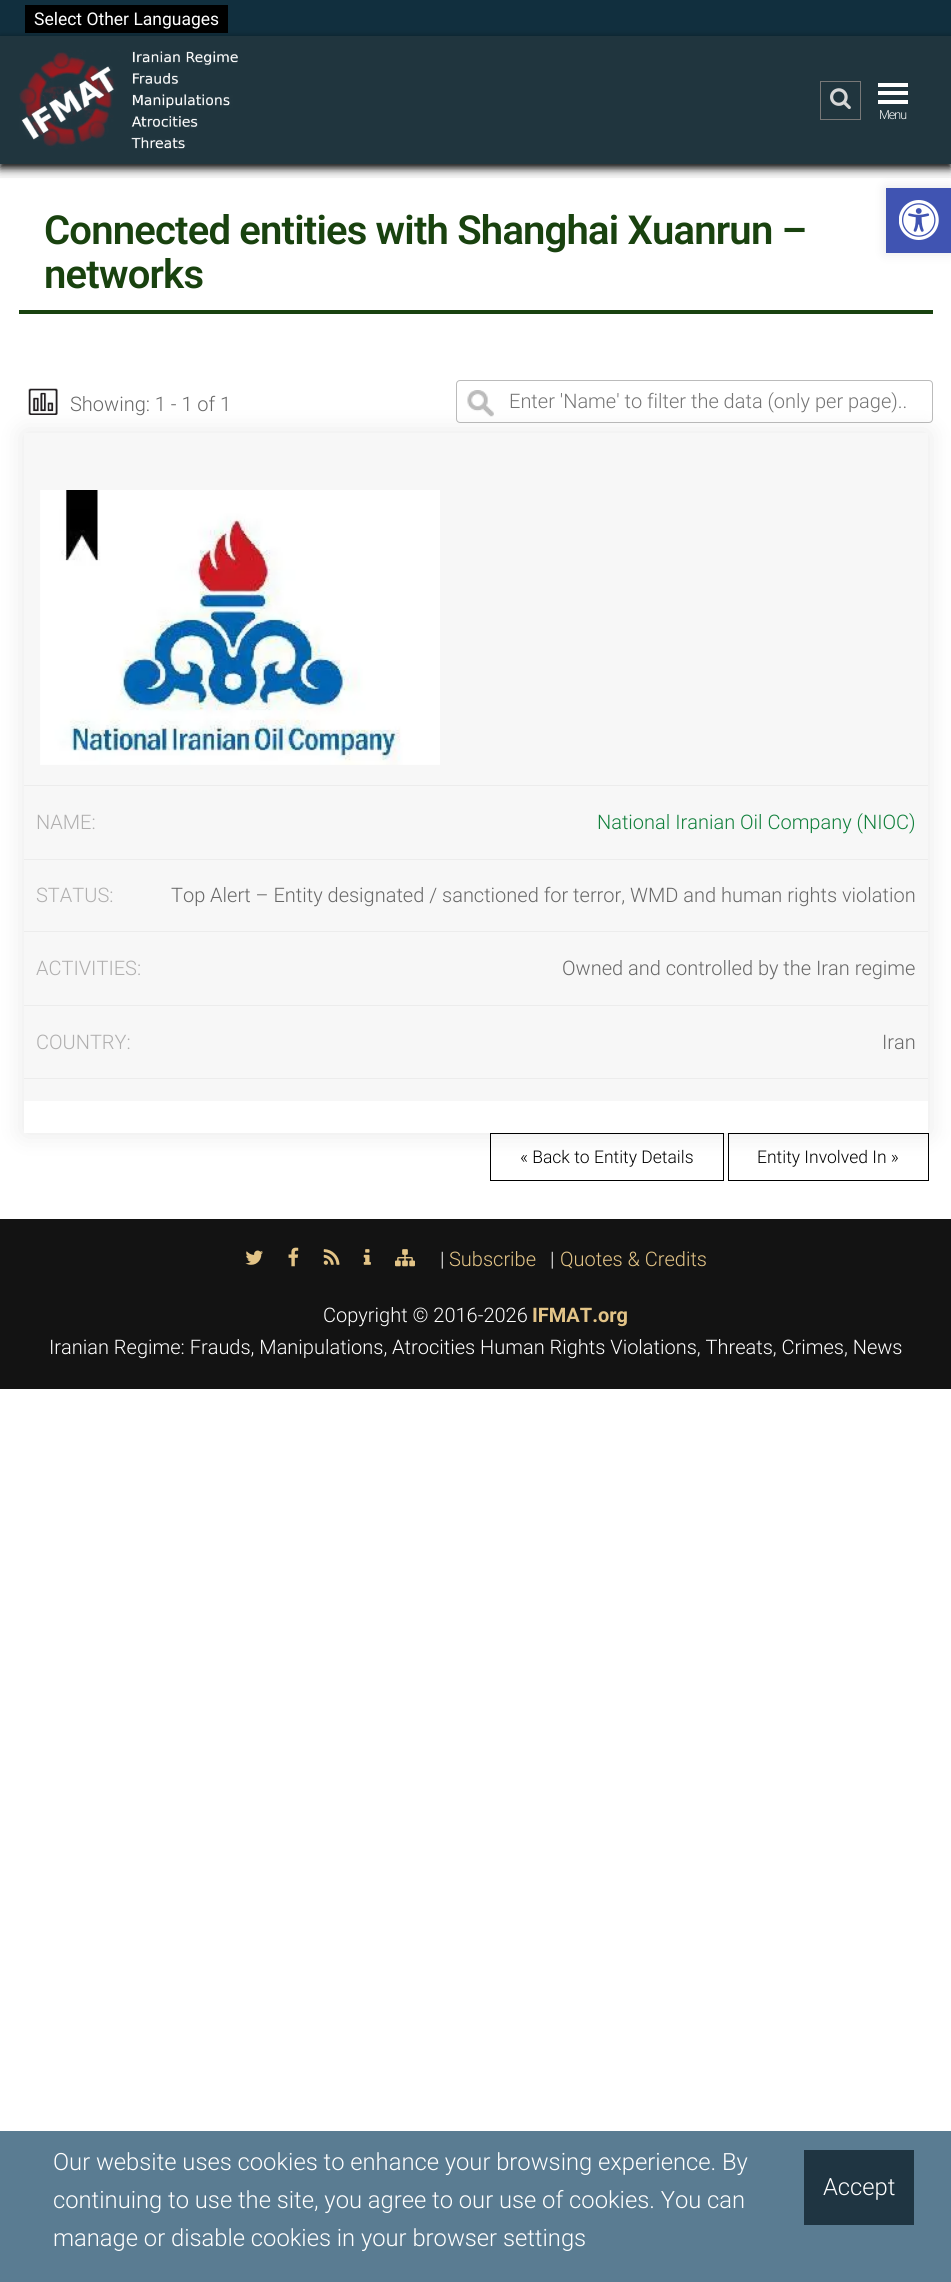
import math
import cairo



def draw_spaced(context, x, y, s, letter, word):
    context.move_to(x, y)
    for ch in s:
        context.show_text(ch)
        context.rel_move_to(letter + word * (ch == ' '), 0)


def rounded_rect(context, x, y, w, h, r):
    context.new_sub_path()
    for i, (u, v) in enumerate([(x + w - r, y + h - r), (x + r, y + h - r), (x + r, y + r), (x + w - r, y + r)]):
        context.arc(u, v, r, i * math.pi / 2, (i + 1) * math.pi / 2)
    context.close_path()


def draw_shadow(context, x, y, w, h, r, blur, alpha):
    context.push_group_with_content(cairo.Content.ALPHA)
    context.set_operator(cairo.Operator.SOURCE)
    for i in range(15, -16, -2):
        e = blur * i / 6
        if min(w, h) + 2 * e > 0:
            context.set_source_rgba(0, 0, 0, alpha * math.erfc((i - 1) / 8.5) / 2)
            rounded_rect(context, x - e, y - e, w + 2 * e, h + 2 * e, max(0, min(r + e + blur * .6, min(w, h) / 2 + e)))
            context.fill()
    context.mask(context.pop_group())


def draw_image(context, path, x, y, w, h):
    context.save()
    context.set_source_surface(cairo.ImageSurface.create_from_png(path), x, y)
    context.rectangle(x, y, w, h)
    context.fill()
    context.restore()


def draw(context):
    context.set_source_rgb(1, 1, 1)
    context.paint()
    context.set_source_rgb(246 / 255, 246 / 255, 246 / 255)
    context.rectangle(0, 164, 951, 14)
    context.fill()
    context.set_source_rgb(17 / 255, 47 / 255, 62 / 255)
    context.rectangle(0, 0, 951, 36)
    context.fill()
    context.set_source_rgb(0, 0, 0)
    context.rectangle(25, 5, 203, 28)
    context.fill()
    context.set_source_rgb(0, 0, 0)
    draw_shadow(context, 0, 40, 951, 128, 0, 4.5, 1)
    context.set_source_rgb(32 / 255, 53 / 255, 62 / 255)
    context.rectangle(0, 36, 951, 128)
    context.fill()
    draw_image(context, "images/1.png", 19, 50, 219, 99)
    context.rectangle(820.5, 81.5, 40, 38)
    context.set_source_rgb(120 / 255, 120 / 255, 120 / 255)
    context.set_line_width(1)
    context.stroke()
    draw_image(context, "images/2.png", 830, 88, 21, 22)
    context.set_source_rgb(1, 1, 1)
    context.rectangle(878, 83, 30, 4)
    context.fill()
    context.rectangle(878, 91, 30, 4)
    context.fill()
    context.rectangle(878, 100, 30, 4)
    context.fill()
    context.set_source_rgb(25 / 255, 66 / 255, 15 / 255)
    context.rectangle(19, 310, 914, 4)
    context.fill()
    draw_image(context, "images/3.png", 28, 388, 30, 27)
    draw_image(context, "images/4.png", 467, 390, 27, 27)
    rounded_rect(context, 456.5, 380.5, 476, 42, 3.5)
    context.set_source_rgb(187 / 255, 187 / 255, 187 / 255)
    context.stroke()
    context.rectangle(490.5, 1133.5, 233, 47)
    context.set_source_rgb(0, 0, 0)
    context.stroke()
    context.rectangle(728.5, 1133.5, 200, 47)
    context.stroke()
    context.save()
    context.set_fill_rule(cairo.FillRule.EVEN_ODD)
    context.new_path()
    context.move_to(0, 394)
    context.line_to(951, 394)
    context.line_to(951, 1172)
    context.line_to(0, 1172)
    context.close_path()
    context.move_to(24, 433)
    context.line_to(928, 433)
    context.line_to(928, 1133)
    context.line_to(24, 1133)
    context.close_path()
    context.clip()
    context.set_source_rgb(0, 0, 0)
    draw_shadow(context, 24, 433, 904, 700, 0, 12.5, 0.1)
    context.restore()
    context.set_source_rgb(247 / 255, 247 / 255, 247 / 255)
    context.rectangle(24, 433, 904, 668)
    context.fill()
    context.set_source_rgb(236 / 255, 236 / 255, 236 / 255)
    context.rectangle(24, 785, 904, 1)
    context.fill()
    draw_image(context, "images/5.png", 40, 490, 400, 275)
    context.rectangle(24, 859, 904, 1)
    context.fill()
    context.rectangle(24, 931, 904, 1)
    context.fill()
    context.rectangle(24, 1005, 904, 1)
    context.fill()
    context.rectangle(24, 1078, 904, 1)
    context.fill()
    context.set_source_rgb(0, 0, 0)
    draw_shadow(context, 886, 188, 65, 65, 0, 6, 0.1)
    context.set_source_rgb(64 / 255, 84 / 255, 178 / 255)
    context.rectangle(886, 188, 65, 65)
    context.fill()
    draw_image(context, "images/6.png", 899, 200, 40, 40)
    context.set_source_rgb(19 / 255, 19 / 255, 19 / 255)
    context.rectangle(0, 1219, 951, 170)
    context.fill()
    draw_image(context, "images/7.png", 245, 1250, 18, 15)
    draw_image(context, "images/8.png", 288, 1247, 11, 20)
    draw_image(context, "images/9.png", 323, 1249, 17, 16)
    draw_image(context, "images/10.png", 363, 1249, 8, 16)
    draw_image(context, "images/11.png", 395, 1249, 20, 18)
    context.set_source_rgb(90 / 255, 124 / 255, 146 / 255)
    context.rectangle(0, 2131, 951, 151)
    context.fill()
    context.set_source_rgb(31 / 255, 53 / 255, 66 / 255)
    context.rectangle(804, 2150, 110, 75)
    context.fill()
    context.select_font_face("Roboto")
    context.set_font_size(17.5)
    context.set_source_rgb(1, 1, 1)
    context.move_to(34, 25)
    context.show_text("Select Other Languages")
    context.select_font_face("Roboto Light")
    context.set_font_size(12.5)
    draw_spaced(context, 879, 119, "Menu", -1, 0)
    context.select_font_face("Roboto SemiBold")
    context.set_font_size(40)
    context.set_source_rgb(25 / 255, 66 / 255, 15 / 255)
    draw_spaced(context, 44, 244, "Connected entities with Shanghai Xuanrun –", -0.8, 0)
    draw_spaced(context, 44, 288, "networks", -0.8, 0)
    context.select_font_face("Roboto Light")
    context.set_font_size(20)
    context.set_source_rgb(104 / 255, 104 / 255, 104 / 255)
    context.move_to(70, 411)
    context.show_text("Showing: 1 - 1 of 1")
    context.set_source_rgb(117 / 255, 117 / 255, 117 / 255)
    context.move_to(509, 408)
    context.show_text("Enter 'Name' to filter the data (only per page)..")
    context.set_source_rgb(176 / 255, 175 / 255, 175 / 255)
    context.move_to(36, 829)
    context.show_text("NAME:")
    context.set_source_rgb(17 / 255, 128 / 255, 60 / 255)
    context.move_to(597, 829)
    context.show_text("National Iranian Oil Company (NIOC)")
    context.set_source_rgb(176 / 255, 175 / 255, 175 / 255)
    context.move_to(36, 902)
    context.show_text("STATUS:")
    context.set_source_rgb(104 / 255, 104 / 255, 104 / 255)
    context.move_to(171, 902)
    context.show_text("Top Alert – Entity designated / sanctioned for terror, WMD and human rights violation")
    context.set_source_rgb(176 / 255, 175 / 255, 175 / 255)
    context.move_to(36, 975)
    context.show_text("ACTIVITIES:")
    context.set_source_rgb(104 / 255, 104 / 255, 104 / 255)
    context.move_to(562, 975)
    context.show_text("Owned and controlled by the Iran regime")
    context.set_source_rgb(176 / 255, 175 / 255, 175 / 255)
    context.move_to(36, 1049)
    context.show_text("COUNTRY:")
    context.set_source_rgb(104 / 255, 104 / 255, 104 / 255)
    context.move_to(882, 1049)
    context.show_text("Iran")
    context.set_font_size(17.5)
    context.set_source_rgb(0, 0, 0)
    context.move_to(520, 1163)
    context.show_text("« Back to Entity Details")
    context.move_to(757, 1163)
    context.show_text("Entity Involved In »")
    context.set_font_size(20)
    context.set_source_rgb(1, 1, 1)
    context.move_to(440, 1266)
    context.show_text("|")
    context.set_source_rgb(227 / 255, 196 / 255, 135 / 255)
    context.move_to(449, 1266)
    context.show_text("Subscribe")
    context.set_source_rgb(1, 1, 1)
    context.move_to(550, 1266)
    context.show_text("|")
    context.set_source_rgb(227 / 255, 196 / 255, 135 / 255)
    context.move_to(560, 1266)
    context.show_text("Quotes & Credits")
    context.set_source_rgb(1, 1, 1)
    context.move_to(323, 1322)
    context.show_text("Copyright © 2016-2026")
    context.select_font_face("Roboto", cairo.FontSlant.NORMAL, cairo.FontWeight.BOLD)
    context.set_source_rgb(227 / 255, 196 / 255, 135 / 255)
    context.move_to(532, 1322)
    context.show_text("IFMAT.org")
    context.select_font_face("Roboto Light")
    context.set_source_rgb(1, 1, 1)
    context.move_to(49, 1354)
    context.show_text("Iranian Regime: Frauds, Manipulations, Atrocities Human Rights Violations, Threats, Crimes, News")
    context.set_font_size(23.75)
    context.move_to(53, 2170)
    context.show_text("Our website uses cookies to enhance your browsing experience. By")
    context.move_to(53, 2208)
    context.show_text("continuing to use the site, you agree to our use of cookies. You can")
    context.move_to(53, 2246)
    context.show_text("manage or disable cookies in your browser settings")
    context.move_to(823, 2195)
    context.show_text("Accept")


surface = cairo.ImageSurface(cairo.Format.RGB24, 951, 2282)
context = cairo.Context(surface)
options = cairo.FontOptions()
options.set_hint_metrics(cairo.HintMetrics.OFF)
options.set_hint_style(cairo.HintStyle.NONE)
context.set_font_options(options)
context.set_miter_limit(4)
draw(context)
surface.write_to_png("out.png")
